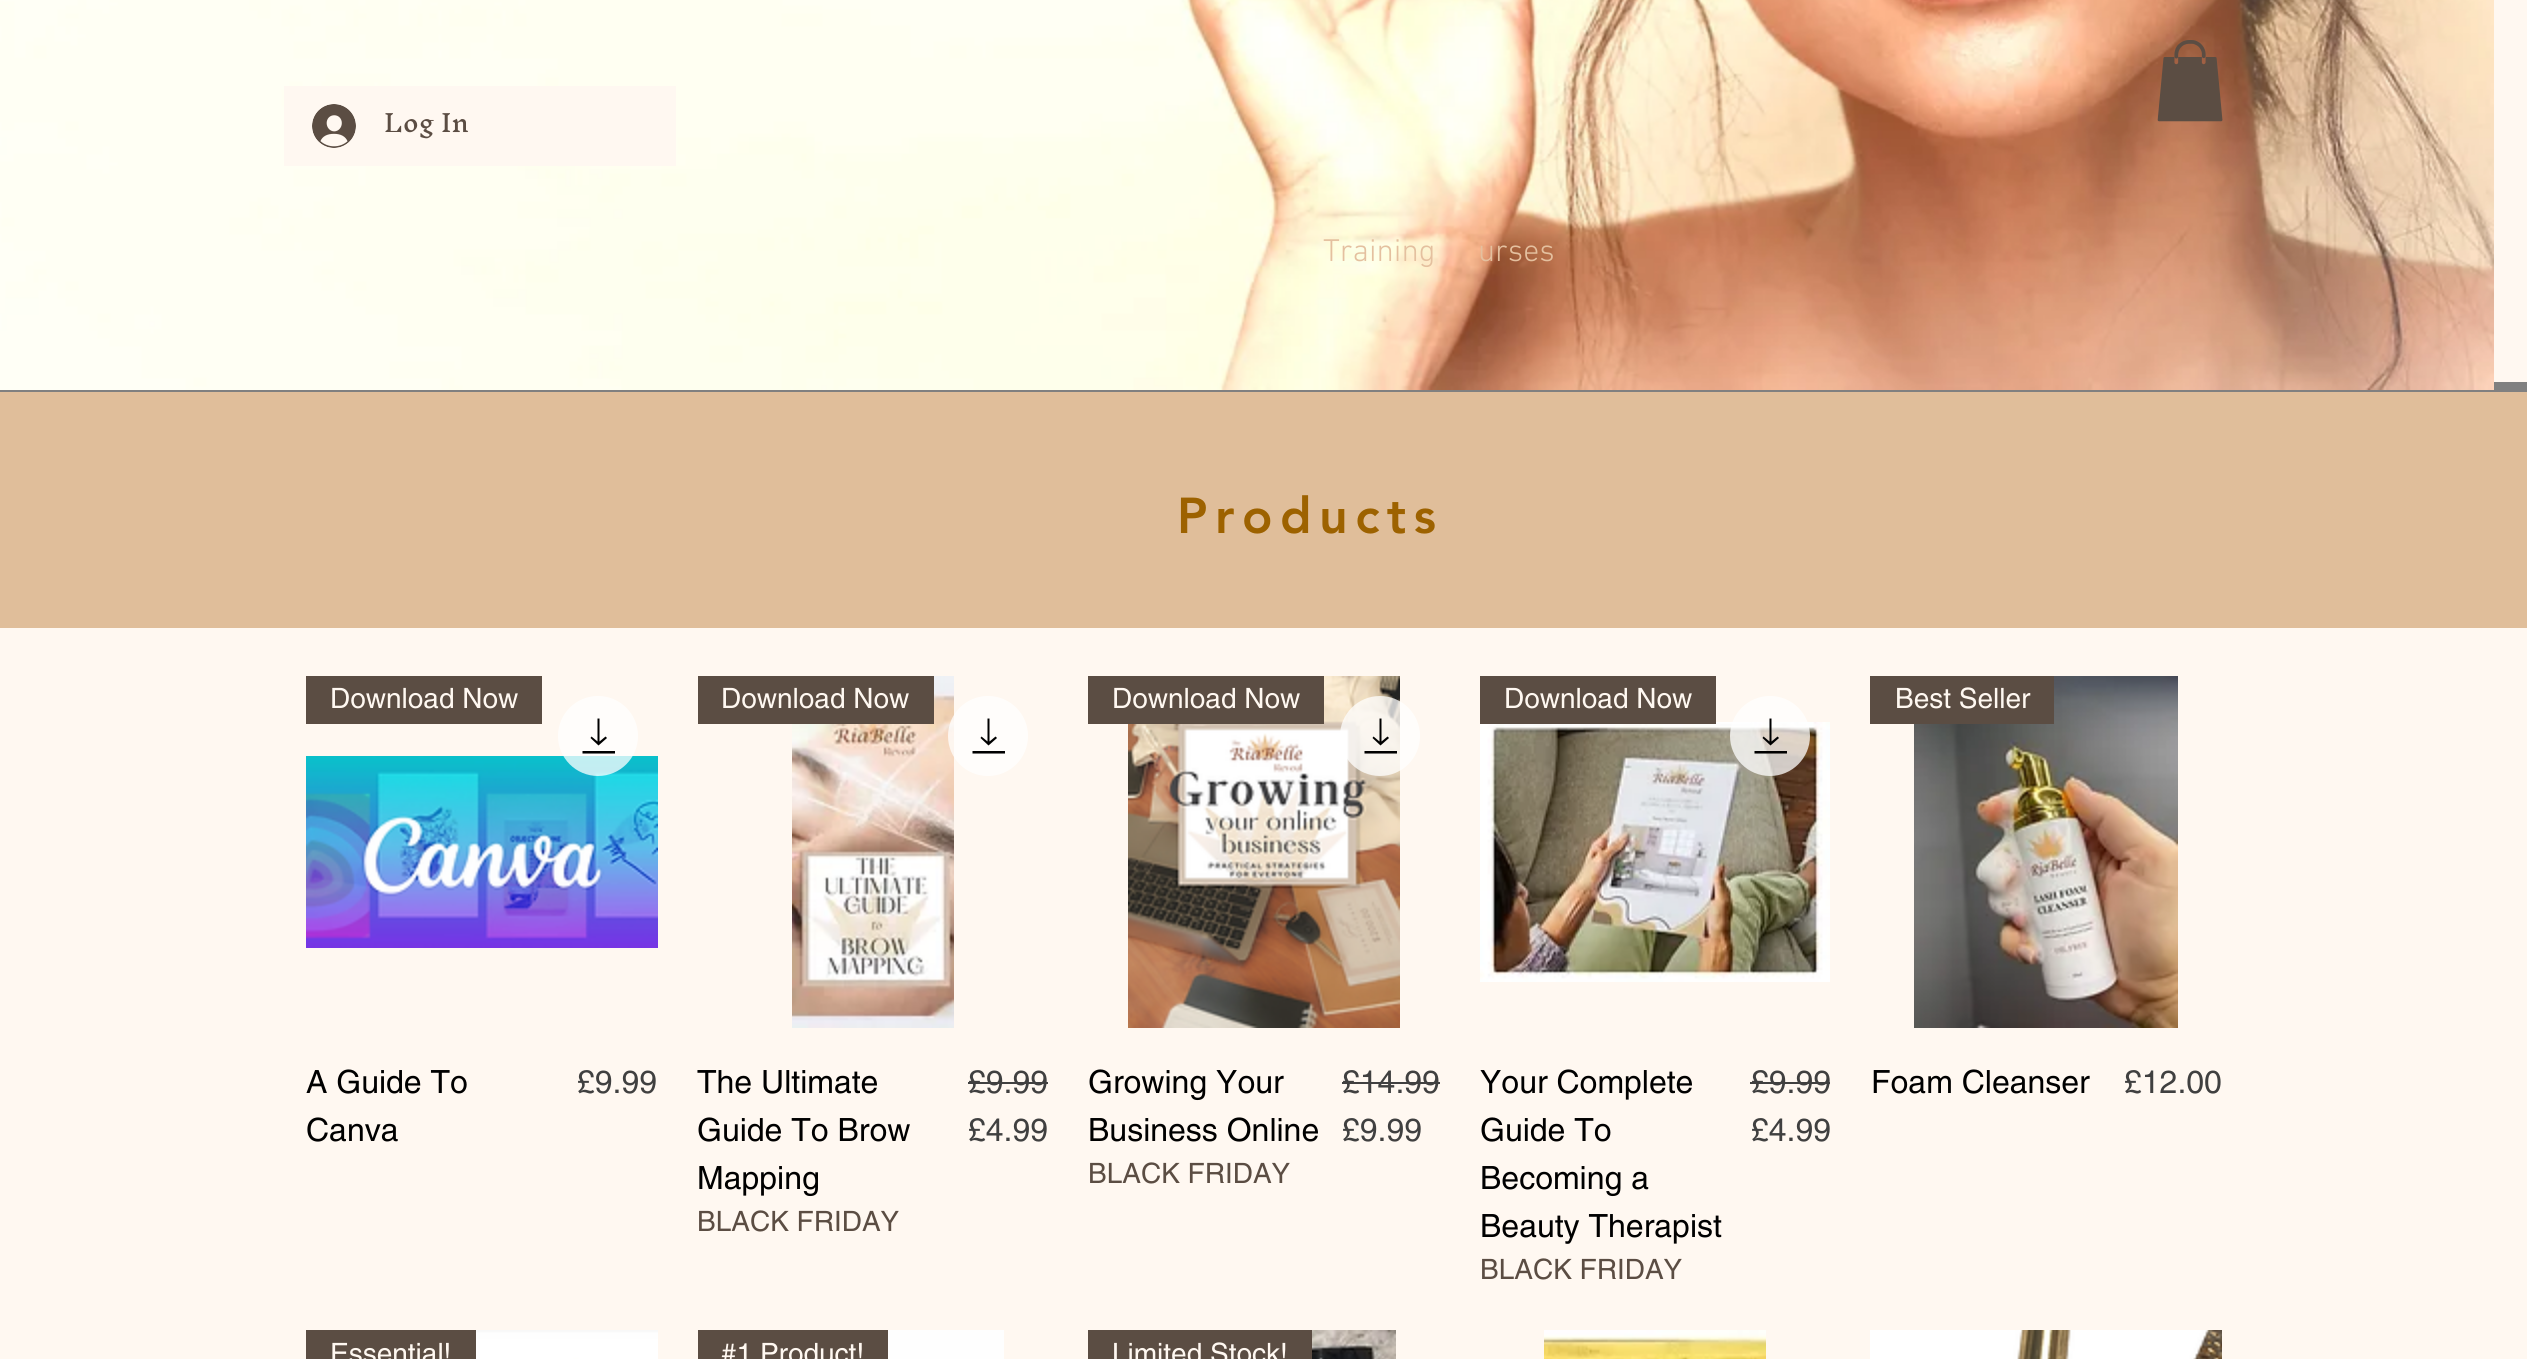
import math
import cairo



def draw_spaced(context, x, y, s, letter, word):
    context.move_to(x, y)
    for ch in s:
        context.show_text(ch)
        context.rel_move_to(letter + word * (ch == ' '), 0)


def draw_image(context, path, x, y, w, h):
    context.save()
    context.set_source_surface(cairo.ImageSurface.create_from_png(path), x, y)
    context.rectangle(x, y, w, h)
    context.fill()
    context.restore()


def draw(context):
    context.set_source_rgb(1, 248 / 255, 241 / 255)
    context.paint()
    context.set_source_rgb(128 / 255, 128 / 255, 128 / 255)
    context.rectangle(0, 382, 2527, 10)
    context.fill()
    draw_image(context, "images/1.png", 0, 0, 2494, 390)
    draw_image(context, "images/2.png", 2157, 40, 66, 82)
    context.set_source_rgb(1, 248 / 255, 241 / 255)
    context.rectangle(284, 86, 392, 80)
    context.fill()
    draw_image(context, "images/3.png", 312, 104, 44, 44)
    context.set_source_rgb(224 / 255, 190 / 255, 154 / 255)
    context.rectangle(0, 392, 2527, 236)
    context.fill()
    context.set_source_rgb(91 / 255, 77 / 255, 67 / 255)
    context.rectangle(306, 676, 236, 48)
    context.fill()
    draw_image(context, "images/4.png", 306, 756, 352, 192)
    context.set_source_rgba(1, 1, 1, 0.75)
    context.arc(598, 736, 40, 0, 2 * math.pi)
    context.fill()
    context.set_source_rgb(0, 0, 0)
    context.new_path()
    context.move_to(605.5, 736.5)
    context.line_to(599.5, 741.5)
    context.line_to(599.5, 718.5)
    context.line_to(597.5, 718.5)
    context.line_to(597.5, 741.5)
    context.line_to(591.5, 736.5)
    context.line_to(590.5, 738)
    context.line_to(598.5, 745.5)
    context.line_to(607, 738)
    context.close_path()
    context.move_to(582.5, 751)
    context.line_to(615, 751)
    context.line_to(615, 753.5)
    context.line_to(582.5, 753.5)
    context.close_path()
    context.fill()
    draw_image(context, "images/5.png", 792, 676, 162, 352)
    context.set_source_rgba(1, 1, 1, 0.75)
    context.arc(988, 736, 40, 0, 2 * math.pi)
    context.fill()
    context.set_source_rgb(0, 0, 0)
    context.new_path()
    context.move_to(995.5, 736.5)
    context.line_to(989.5, 741.5)
    context.line_to(989.5, 718.5)
    context.line_to(987.5, 718.5)
    context.line_to(987.5, 741.5)
    context.line_to(981.5, 736.5)
    context.line_to(980.5, 738)
    context.line_to(988.5, 745.5)
    context.line_to(997, 738)
    context.close_path()
    context.move_to(972.5, 751)
    context.line_to(1005, 751)
    context.line_to(1005, 753.5)
    context.line_to(972.5, 753.5)
    context.close_path()
    context.fill()
    context.set_source_rgb(91 / 255, 77 / 255, 67 / 255)
    context.rectangle(698, 676, 236, 48)
    context.fill()
    context.set_source_rgb(64 / 255, 64 / 255, 64 / 255)
    context.rectangle(968, 1082, 80, 2)
    context.fill()
    draw_image(context, "images/6.png", 1128, 676, 272, 352)
    context.set_source_rgba(1, 1, 1, 0.75)
    context.arc(1380, 736, 40, 0, 2 * math.pi)
    context.fill()
    context.set_source_rgb(0, 0, 0)
    context.new_path()
    context.move_to(1387.5, 736.5)
    context.line_to(1381.5, 741.5)
    context.line_to(1381.5, 718.5)
    context.line_to(1379.5, 718.5)
    context.line_to(1379.5, 741.5)
    context.line_to(1373.5, 736.5)
    context.line_to(1372.5, 738)
    context.line_to(1380.5, 745.5)
    context.line_to(1389, 738)
    context.close_path()
    context.move_to(1364.5, 751)
    context.line_to(1397, 751)
    context.line_to(1397, 753.5)
    context.line_to(1364.5, 753.5)
    context.close_path()
    context.fill()
    context.set_source_rgb(91 / 255, 77 / 255, 67 / 255)
    context.rectangle(1088, 676, 236, 48)
    context.fill()
    context.set_source_rgb(64 / 255, 64 / 255, 64 / 255)
    context.rectangle(1342, 1082, 98, 2)
    context.fill()
    draw_image(context, "images/7.png", 1480, 722, 350, 260)
    context.set_source_rgb(91 / 255, 77 / 255, 67 / 255)
    context.rectangle(1480, 676, 236, 48)
    context.fill()
    context.set_source_rgba(1, 1, 1, 0.75)
    context.arc(1770, 736, 40, 0, 2 * math.pi)
    context.fill()
    context.set_source_rgb(0, 0, 0)
    context.new_path()
    context.move_to(1777.5, 736.5)
    context.line_to(1771.5, 741.5)
    context.line_to(1771.5, 718.5)
    context.line_to(1769.5, 718.5)
    context.line_to(1769.5, 741.5)
    context.line_to(1763.5, 736.5)
    context.line_to(1762.5, 738)
    context.line_to(1770.5, 745.5)
    context.line_to(1779, 738)
    context.close_path()
    context.move_to(1754.5, 751)
    context.line_to(1787, 751)
    context.line_to(1787, 753.5)
    context.line_to(1754.5, 753.5)
    context.close_path()
    context.fill()
    context.set_source_rgb(64 / 255, 64 / 255, 64 / 255)
    context.rectangle(1750, 1082, 80, 2)
    context.fill()
    draw_image(context, "images/8.png", 1914, 676, 264, 352)
    context.set_source_rgb(91 / 255, 77 / 255, 67 / 255)
    context.rectangle(1870, 676, 184, 48)
    context.fill()
    context.rectangle(306, 1330, 170, 29)
    context.fill()
    draw_image(context, "images/9.png", 476, 1330, 182, 29)
    context.rectangle(698, 1330, 190, 29)
    context.fill()
    context.set_source_rgb(254 / 255, 254 / 255, 254 / 255)
    context.rectangle(888, 1330, 116, 29)
    context.fill()
    context.set_source_rgb(91 / 255, 77 / 255, 67 / 255)
    context.rectangle(1088, 1330, 224, 29)
    context.fill()
    draw_image(context, "images/10.png", 1312, 1330, 84, 29)
    draw_image(context, "images/11.png", 1544, 1330, 222, 29)
    draw_image(context, "images/12.png", 1870, 1330, 352, 29)
    context.select_font_face("Inknut Antiqua")
    context.set_font_size(24)
    context.move_to(384, 132)
    context.show_text("Log In")
    context.select_font_face("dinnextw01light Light")
    context.set_font_size(32)
    context.set_source_rgb(228 / 255, 192 / 255, 159 / 255)
    context.move_to(1323, 261)
    context.show_text("Training")
    context.move_to(1478, 261)
    context.show_text("urses")
    context.select_font_face("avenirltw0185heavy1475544 Black")
    context.set_font_size(50)
    context.set_source_rgb(157 / 255, 98 / 255, 0)
    draw_spaced(context, 1177, 533, "Products", 7.5, 0)
    context.select_font_face("helvetica")
    context.set_font_size(28)
    context.set_source_rgb(1, 248 / 255, 241 / 255)
    context.move_to(330, 708)
    context.show_text("Download Now")
    context.set_font_size(32)
    context.set_source_rgb(0, 0, 0)
    context.move_to(306, 1093)
    context.show_text("A Guide To")
    context.move_to(306, 1141)
    context.show_text("Canva")
    context.set_source_rgb(64 / 255, 64 / 255, 64 / 255)
    context.move_to(577, 1093)
    context.show_text("£9.99")
    context.set_font_size(28)
    context.set_source_rgb(1, 248 / 255, 241 / 255)
    context.move_to(721, 708)
    context.show_text("Download Now")
    context.set_font_size(32)
    context.set_source_rgb(0, 0, 0)
    context.move_to(697, 1093)
    context.show_text("The Ultimate")
    context.move_to(697, 1141)
    context.show_text("Guide To Brow")
    context.move_to(697, 1189)
    context.show_text("Mapping")
    context.set_source_rgb(64 / 255, 64 / 255, 64 / 255)
    context.move_to(968, 1093)
    context.show_text("£9.99")
    context.move_to(968, 1141)
    context.show_text("£4.99")
    context.set_font_size(28)
    context.set_source_rgb(91 / 255, 77 / 255, 67 / 255)
    context.move_to(697, 1231)
    context.show_text("BLACK FRIDAY")
    context.set_source_rgb(1, 248 / 255, 241 / 255)
    context.move_to(1112, 708)
    context.show_text("Download Now")
    context.set_font_size(32)
    context.set_source_rgb(0, 0, 0)
    context.move_to(1088, 1093)
    context.show_text("Growing Your")
    context.move_to(1088, 1141)
    context.show_text("Business Online")
    context.set_source_rgb(64 / 255, 64 / 255, 64 / 255)
    context.move_to(1342, 1093)
    context.show_text("£14.99")
    context.move_to(1342, 1141)
    context.show_text("£9.99")
    context.set_font_size(28)
    context.set_source_rgb(91 / 255, 77 / 255, 67 / 255)
    context.move_to(1088, 1183)
    context.show_text("BLACK FRIDAY")
    context.set_source_rgb(1, 248 / 255, 241 / 255)
    context.move_to(1504, 708)
    context.show_text("Download Now")
    context.set_font_size(32)
    context.set_source_rgb(0, 0, 0)
    context.move_to(1480, 1093)
    context.show_text("Your Complete")
    context.move_to(1480, 1141)
    context.show_text("Guide To")
    context.move_to(1480, 1189)
    context.show_text("Becoming a")
    context.move_to(1480, 1237)
    context.show_text("Beauty Therapist")
    context.set_source_rgb(64 / 255, 64 / 255, 64 / 255)
    context.move_to(1751, 1093)
    context.show_text("£9.99")
    context.move_to(1751, 1141)
    context.show_text("£4.99")
    context.set_font_size(28)
    context.set_source_rgb(91 / 255, 77 / 255, 67 / 255)
    context.move_to(1480, 1279)
    context.show_text("BLACK FRIDAY")
    context.set_source_rgb(1, 248 / 255, 241 / 255)
    context.move_to(1895, 708)
    context.show_text("Best Seller")
    context.set_font_size(32)
    context.set_source_rgb(0, 0, 0)
    context.move_to(1871, 1093)
    context.show_text("Foam Cleanser")
    context.set_source_rgb(64 / 255, 64 / 255, 64 / 255)
    context.move_to(2124, 1093)
    context.show_text("£12.00")
    context.set_font_size(28)
    context.set_source_rgb(1, 248 / 255, 241 / 255)
    context.move_to(330, 1363)
    context.show_text("Essential!")
    context.move_to(721, 1363)
    context.show_text("#1 Product!")
    context.move_to(1112, 1363)
    context.show_text("Limited Stock!")


surface = cairo.ImageSurface(cairo.Format.RGB24, 2527, 1359)
context = cairo.Context(surface)
options = cairo.FontOptions()
options.set_hint_metrics(cairo.HintMetrics.OFF)
options.set_hint_style(cairo.HintStyle.NONE)
context.set_font_options(options)
context.set_miter_limit(4)
draw(context)
surface.write_to_png("out.png")
